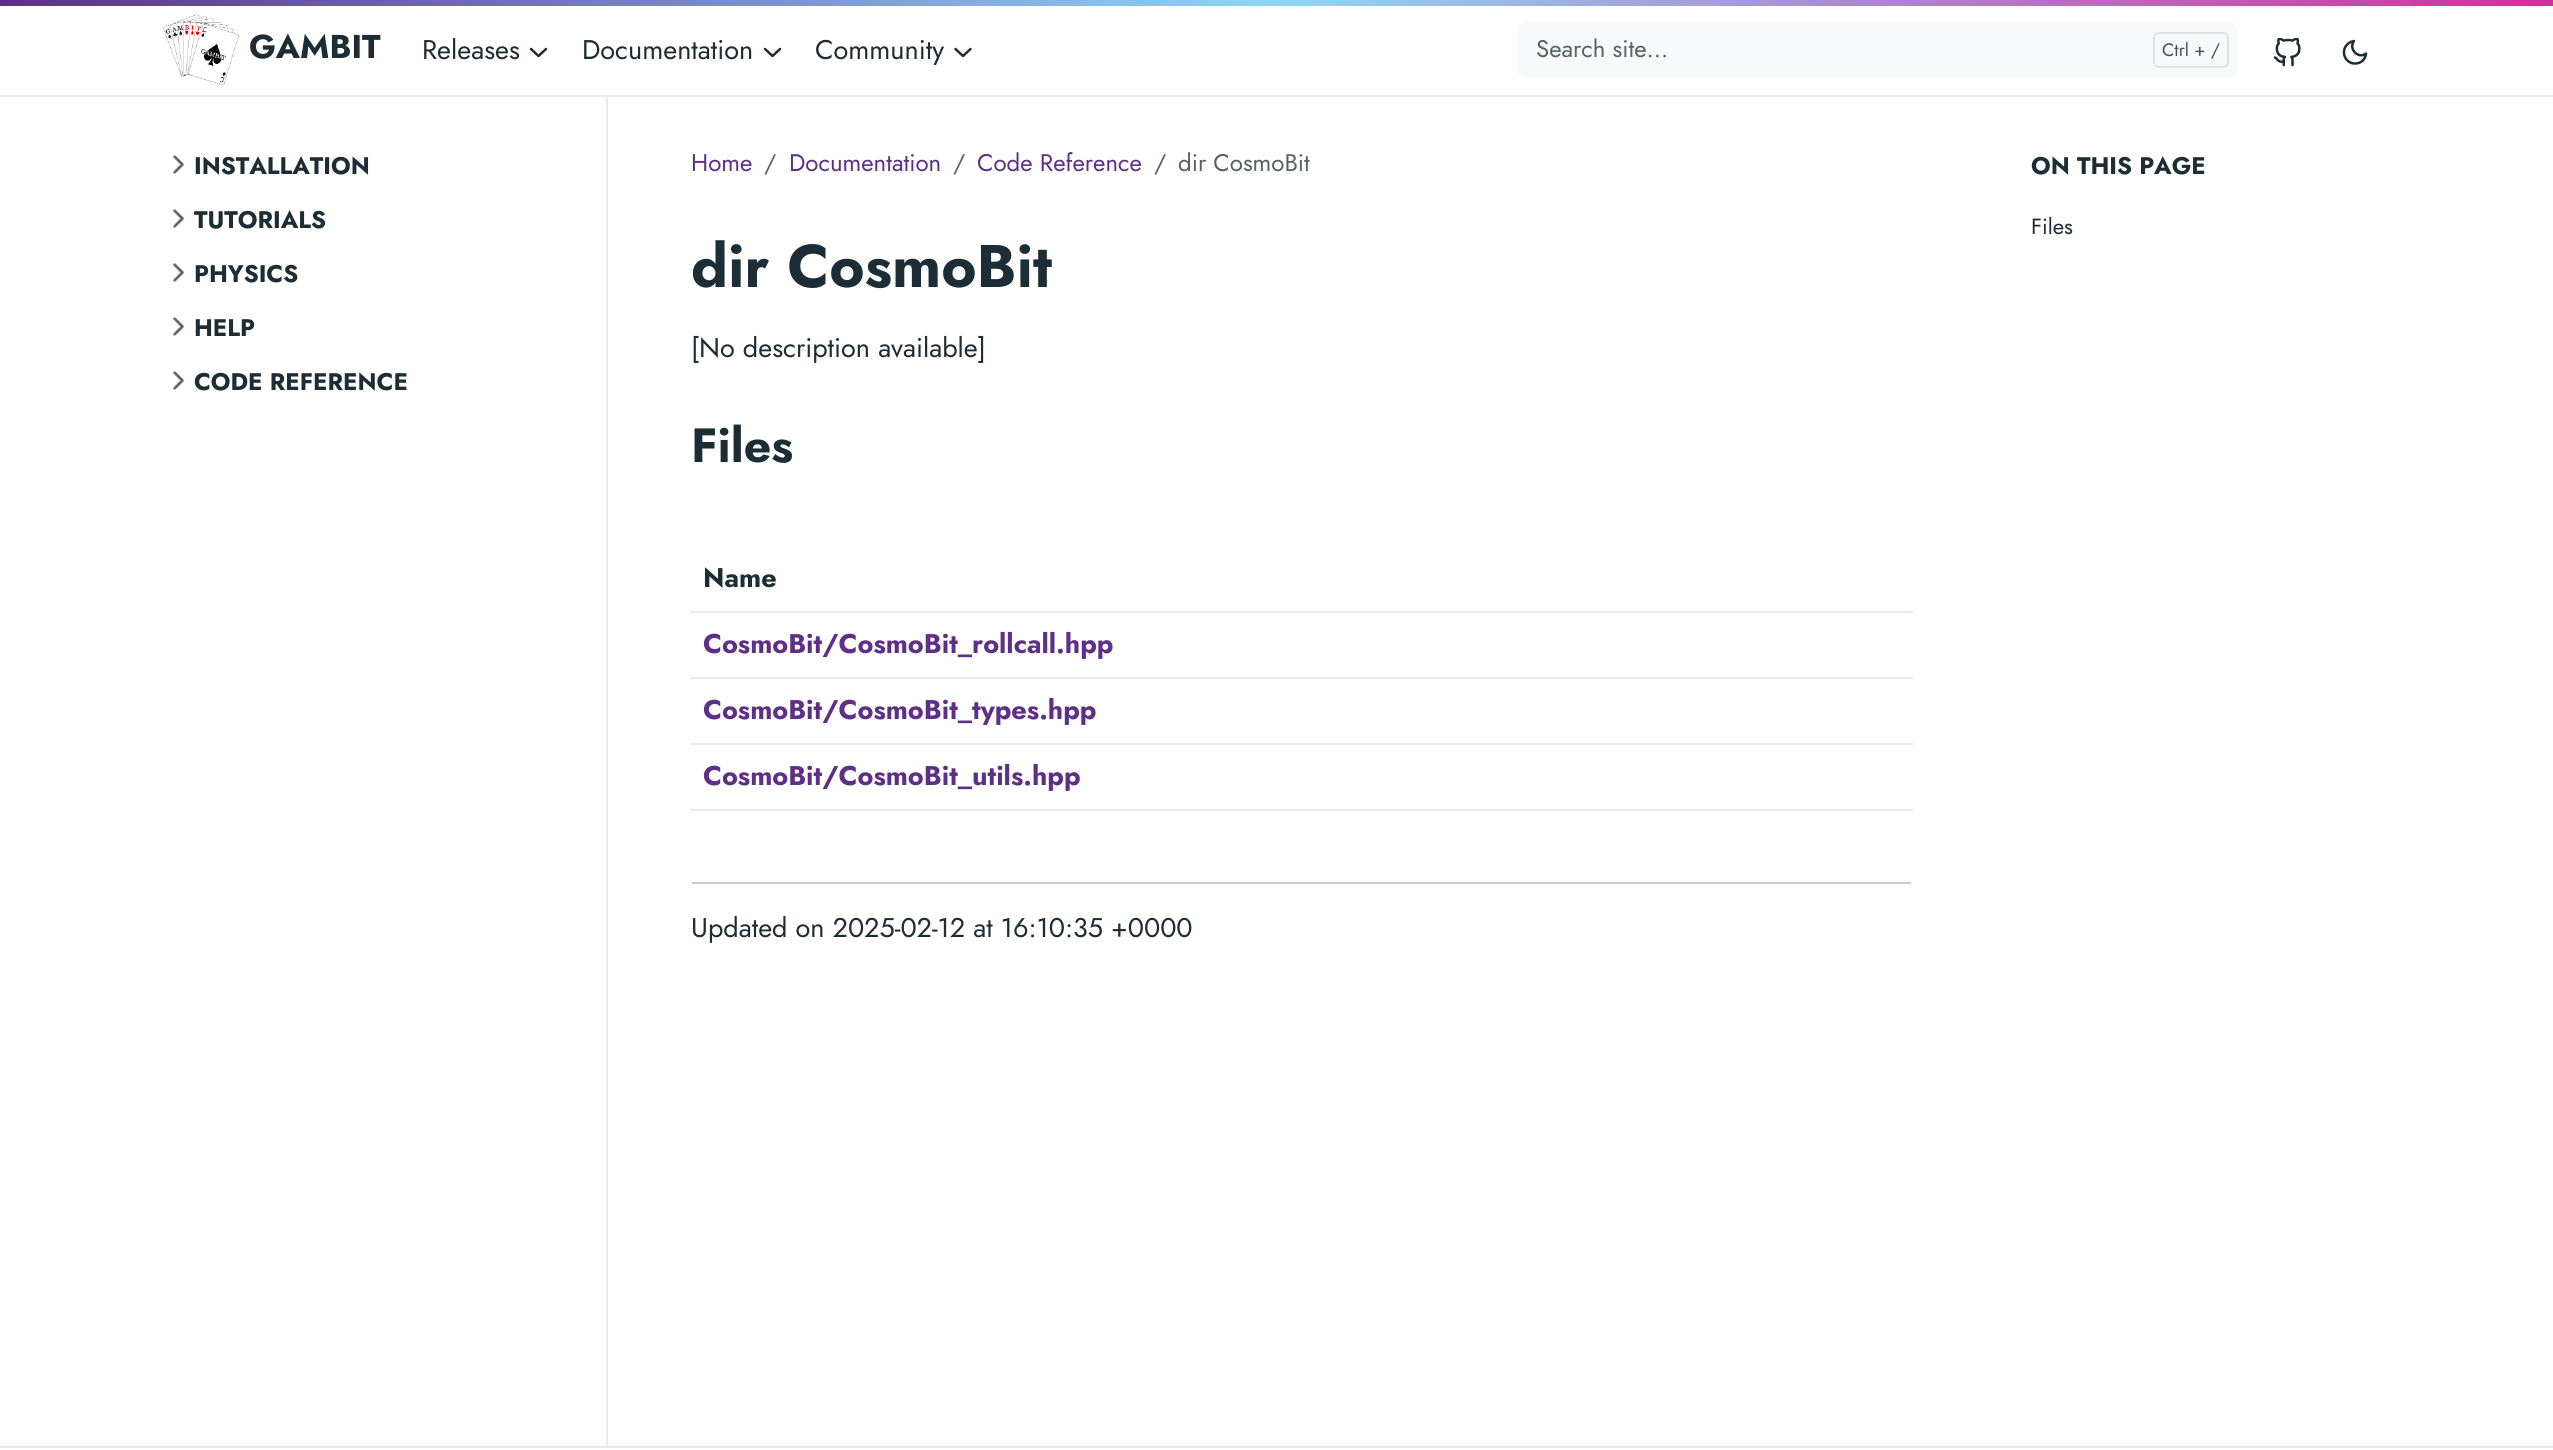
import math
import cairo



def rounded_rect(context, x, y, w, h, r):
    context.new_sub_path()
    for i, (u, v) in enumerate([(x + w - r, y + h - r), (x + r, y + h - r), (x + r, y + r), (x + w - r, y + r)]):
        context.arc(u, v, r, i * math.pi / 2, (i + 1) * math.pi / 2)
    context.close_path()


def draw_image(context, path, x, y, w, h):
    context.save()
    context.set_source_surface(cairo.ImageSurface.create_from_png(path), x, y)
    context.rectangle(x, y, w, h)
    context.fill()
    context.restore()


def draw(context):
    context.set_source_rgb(1, 1, 1)
    context.paint()
    draw_image(context, "images/1.png", 0, 0, 2553, 6)
    context.set_source_rgb(233 / 255, 236 / 255, 239 / 255)
    context.rectangle(606, 92, 2, 1354)
    context.fill()
    context.set_source_rgb(254 / 255, 254 / 255, 254 / 255)
    context.rectangle(606, 92, 2, 4)
    context.fill()
    context.set_source_rgb(233 / 255, 236 / 255, 239 / 255)
    context.rectangle(0, 95, 2553, 2)
    context.fill()
    draw_image(context, "images/2.png", 163, 14, 76, 71)
    context.new_path()
    context.move_to(531, 49)
    context.line_to(538.5, 56)
    context.line_to(546, 49)
    context.set_source_rgb(29 / 255, 45 / 255, 53 / 255)
    context.set_line_width(2.5)
    context.set_line_cap(cairo.LineCap.ROUND)
    context.set_line_join(cairo.LineJoin.ROUND)
    context.stroke()
    context.new_path()
    context.move_to(765, 49)
    context.line_to(772.5, 56)
    context.line_to(780, 49)
    context.stroke()
    context.new_path()
    context.move_to(955.5, 49)
    context.line_to(963, 56)
    context.line_to(970.5, 49)
    context.stroke()
    context.set_source_rgb(248 / 255, 249 / 255, 250 / 255)
    rounded_rect(context, 1517, 21, 720, 57, 9)
    context.fill()
    rounded_rect(context, 2154, 33, 74, 34, 5)
    context.set_source_rgb(222 / 255, 226 / 255, 230 / 255)
    context.set_line_width(2)
    context.set_line_cap(cairo.LineCap.BUTT)
    context.set_line_join(cairo.LineJoin.MITER)
    context.stroke()
    draw_image(context, "images/3.png", 2273, 38, 28, 29)
    context.new_path()
    context.move_to(2366, 53.5)
    context.curve_to(2365.5, 59.5, 2360.5, 64, 2354.5, 63.5)
    context.curve_to(2349, 63.5, 2344, 58.5, 2344, 53)
    context.curve_to(2343.5, 47, 2348, 42, 2354, 41)
    context.curve_to(2348, 49, 2358.5, 59.5, 2366, 53.5)
    context.close_path()
    context.set_source_rgb(29 / 255, 45 / 255, 53 / 255)
    context.set_line_width(2.5)
    context.set_line_cap(cairo.LineCap.ROUND)
    context.set_line_join(cairo.LineJoin.ROUND)
    context.stroke()
    draw_image(context, "images/4.png", 172, 155, 13, 19)
    draw_image(context, "images/4.png", 172, 209, 13, 19)
    draw_image(context, "images/4.png", 172, 263, 13, 19)
    draw_image(context, "images/4.png", 172, 317, 13, 19)
    draw_image(context, "images/4.png", 172, 371, 13, 19)
    context.set_source_rgb(233 / 255, 236 / 255, 239 / 255)
    context.rectangle(690, 611, 1223, 2)
    context.fill()
    context.rectangle(690, 677, 1223, 2)
    context.fill()
    context.rectangle(690, 743, 1223, 2)
    context.fill()
    context.rectangle(690, 809, 1223, 2)
    context.fill()
    context.set_source_rgb(199 / 255, 203 / 255, 205 / 255)
    context.rectangle(692, 882, 1219, 2)
    context.fill()
    context.set_source_rgb(233 / 255, 236 / 255, 239 / 255)
    context.rectangle(0, 1446, 2553, 2)
    context.fill()
    context.select_font_face("Jost", cairo.FontSlant.NORMAL, cairo.FontWeight.BOLD)
    context.set_font_size(33)
    context.set_source_rgb(29 / 255, 45 / 255, 53 / 255)
    context.move_to(249, 58)
    context.show_text("GAMBIT")
    context.select_font_face("Jost")
    context.set_font_size(27)
    context.move_to(422, 59)
    context.show_text("Releases")
    context.move_to(582, 59)
    context.show_text("Documentation")
    context.move_to(815, 59)
    context.show_text("Community")
    context.set_font_size(24)
    context.set_source_rgb(86 / 255, 98 / 255, 104 / 255)
    context.move_to(1536, 57)
    context.show_text("Search site...")
    context.set_font_size(18)
    context.set_source_rgb(73 / 255, 80 / 255, 87 / 255)
    context.move_to(2162, 56)
    context.show_text("Ctrl + /")
    context.select_font_face("Jost", cairo.FontSlant.NORMAL, cairo.FontWeight.BOLD)
    context.set_font_size(24)
    context.set_source_rgb(29 / 255, 45 / 255, 53 / 255)
    context.move_to(194, 174)
    context.show_text("INSTALLATION")
    context.move_to(194, 228)
    context.show_text("TUTORIALS")
    context.move_to(194, 282)
    context.show_text("PHYSICS")
    context.move_to(194, 336)
    context.show_text("HELP")
    context.move_to(194, 390)
    context.show_text("CODE REFERENCE")
    context.select_font_face("Jost")
    context.set_source_rgb(93 / 255, 47 / 255, 134 / 255)
    context.move_to(691, 171)
    context.show_text("Home")
    context.set_source_rgb(86 / 255, 98 / 255, 104 / 255)
    context.move_to(764, 171)
    context.show_text("/")
    context.set_source_rgb(93 / 255, 47 / 255, 134 / 255)
    context.move_to(789, 171)
    context.show_text("Documentation")
    context.set_source_rgb(86 / 255, 98 / 255, 104 / 255)
    context.move_to(953, 171)
    context.show_text("/")
    context.set_source_rgb(93 / 255, 47 / 255, 134 / 255)
    context.move_to(977, 171)
    context.show_text("Code Reference")
    context.set_source_rgb(86 / 255, 98 / 255, 104 / 255)
    context.move_to(1154, 171)
    context.show_text("/")
    context.move_to(1178, 171)
    context.show_text("dir CosmoBit")
    context.select_font_face("Jost", cairo.FontSlant.NORMAL, cairo.FontWeight.BOLD)
    context.set_font_size(60)
    context.set_source_rgb(29 / 255, 45 / 255, 53 / 255)
    context.move_to(691, 287)
    context.show_text("dir CosmoBit")
    context.select_font_face("Jost")
    context.set_font_size(27)
    context.move_to(691, 357)
    context.show_text("[No description available]")
    context.select_font_face("Jost", cairo.FontSlant.NORMAL, cairo.FontWeight.BOLD)
    context.set_font_size(48)
    context.move_to(691, 462)
    context.show_text("Files")
    context.set_font_size(27)
    context.move_to(703, 587)
    context.show_text("Name")
    context.set_source_rgb(93 / 255, 47 / 255, 134 / 255)
    context.move_to(703, 653)
    context.show_text("CosmoBit/CosmoBit_rollcall.hpp")
    context.move_to(703, 719)
    context.show_text("CosmoBit/CosmoBit_types.hpp")
    context.move_to(703, 785)
    context.show_text("CosmoBit/CosmoBit_utils.hpp")
    context.select_font_face("Jost")
    context.set_source_rgb(29 / 255, 45 / 255, 53 / 255)
    context.move_to(691, 937)
    context.show_text("Updated on 2025-02-12 at 16:10:35 +0000")
    context.select_font_face("Jost", cairo.FontSlant.NORMAL, cairo.FontWeight.BOLD)
    context.set_font_size(24)
    context.move_to(2031, 174)
    context.show_text("ON THIS PAGE")
    context.select_font_face("Jost")
    context.set_font_size(22)
    context.move_to(2031, 234)
    context.show_text("Files")


surface = cairo.ImageSurface(cairo.Format.RGB24, 2553, 1450)
context = cairo.Context(surface)
options = cairo.FontOptions()
options.set_hint_metrics(cairo.HintMetrics.OFF)
options.set_hint_style(cairo.HintStyle.NONE)
context.set_font_options(options)
context.set_miter_limit(4)
draw(context)
surface.write_to_png("out.png")
